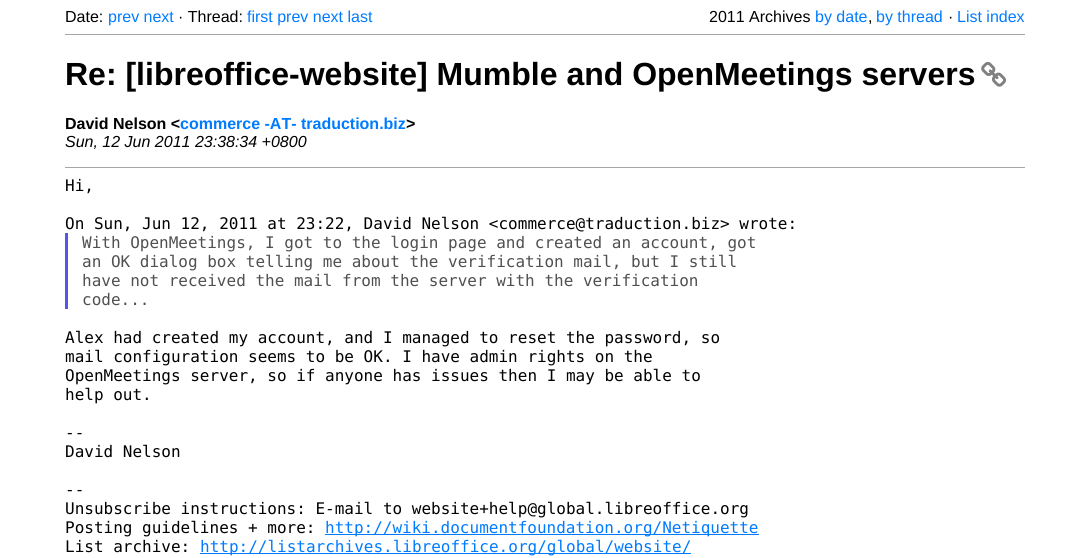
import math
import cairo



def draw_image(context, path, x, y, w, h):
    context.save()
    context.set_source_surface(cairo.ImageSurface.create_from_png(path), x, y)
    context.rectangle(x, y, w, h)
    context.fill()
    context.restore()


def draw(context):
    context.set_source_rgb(1, 1, 1)
    context.paint()
    context.set_source_rgb(166 / 255, 166 / 255, 166 / 255)
    context.rectangle(65, 34, 960, 1)
    context.fill()
    draw_image(context, "images/1.png", 981, 61, 25, 26)
    context.rectangle(65, 167, 960, 1)
    context.fill()
    context.set_source_rgb(85 / 255, 85 / 255, 238 / 255)
    context.rectangle(65, 233, 3, 76)
    context.fill()
    context.set_source_rgb(0, 123 / 255, 1)
    context.rectangle(325, 534, 434, 1)
    context.fill()
    context.rectangle(200, 553, 491, 1)
    context.fill()
    context.select_font_face("Liberation Sans")
    context.set_font_size(16)
    context.set_source_rgb(0, 0, 0)
    context.move_to(65, 22)
    context.show_text("Date:")
    context.set_source_rgb(0, 123 / 255, 1)
    context.move_to(108, 22)
    context.show_text("prev next")
    context.set_source_rgb(0, 0, 0)
    context.move_to(178, 22)
    context.show_text("· Thread:")
    context.set_source_rgb(0, 123 / 255, 1)
    context.move_to(247, 22)
    context.show_text("first prev next last")
    context.set_source_rgb(0, 0, 0)
    context.move_to(709, 22)
    context.show_text("2011 Archives")
    context.set_source_rgb(0, 123 / 255, 1)
    context.move_to(815, 22)
    context.show_text("by date")
    context.move_to(876, 22)
    context.show_text("by thread")
    context.set_source_rgb(0, 0, 0)
    context.move_to(948, 22)
    context.show_text("·")
    context.set_source_rgb(0, 123 / 255, 1)
    context.move_to(957, 22)
    context.show_text("List index")
    context.set_source_rgb(0, 0, 0)
    context.move_to(868, 22)
    context.show_text(",")
    context.select_font_face("Liberation Sans", cairo.FontSlant.NORMAL, cairo.FontWeight.BOLD)
    context.set_font_size(32)
    context.move_to(65, 85)
    context.show_text("Re: [libreoffice-website] Mumble and OpenMeetings servers")
    context.set_font_size(16)
    context.move_to(65, 129)
    context.show_text("David Nelson <")
    context.set_source_rgb(0, 123 / 255, 1)
    context.move_to(180, 129)
    context.show_text("commerce -AT- traduction.biz")
    context.set_source_rgb(0, 0, 0)
    context.move_to(406, 129)
    context.show_text(">")
    context.select_font_face("Liberation Sans", cairo.FontSlant.ITALIC)
    context.move_to(65, 147)
    context.show_text("Sun, 12 Jun 2011 23:38:34 +0800")
    context.select_font_face("DejaVu Sans Mono")
    context.move_to(65, 191)
    context.show_text("Hi,")
    context.move_to(65, 229)
    context.show_text("On Sun, Jun 12, 2011 at 23:22, David Nelson <commerce@traduction.biz> wrote:")
    context.set_source_rgb(80 / 255, 80 / 255, 80 / 255)
    context.move_to(82, 248)
    context.show_text("With OpenMeetings, I got to the login page and created an account, got")
    context.move_to(82, 267)
    context.show_text("an OK dialog box telling me about the verification mail, but I still")
    context.move_to(82, 286)
    context.show_text("have not received the mail from the server with the verification")
    context.move_to(82, 305)
    context.show_text("code...")
    context.set_source_rgb(0, 0, 0)
    context.move_to(65, 343)
    context.show_text("Alex had created my account, and I managed to reset the password, so")
    context.move_to(65, 362)
    context.show_text("mail configuration seems to be OK. I have admin rights on the")
    context.move_to(65, 381)
    context.show_text("OpenMeetings server, so if anyone has issues then I may be able to")
    context.move_to(65, 400)
    context.show_text("help out.")
    context.move_to(65, 438)
    context.show_text("--")
    context.move_to(65, 457)
    context.show_text("David Nelson")
    context.move_to(65, 495)
    context.show_text("--")
    context.move_to(65, 514)
    context.show_text("Unsubscribe instructions: E-mail to website+help@global.libreoffice.org")
    context.move_to(65, 533)
    context.show_text("Posting guidelines + more:")
    context.set_source_rgb(0, 123 / 255, 1)
    context.move_to(325, 533)
    context.show_text("http://wiki.documentfoundation.org/Netiquette")
    context.set_source_rgb(0, 0, 0)
    context.move_to(65, 552)
    context.show_text("List archive:")
    context.set_source_rgb(0, 123 / 255, 1)
    context.move_to(200, 552)
    context.show_text("http://listarchives.libreoffice.org/global/website/")


surface = cairo.ImageSurface(cairo.Format.RGB24, 1090, 558)
context = cairo.Context(surface)
options = cairo.FontOptions()
options.set_hint_metrics(cairo.HintMetrics.OFF)
options.set_hint_style(cairo.HintStyle.NONE)
context.set_font_options(options)
context.set_miter_limit(4)
draw(context)
surface.write_to_png("out.png")
